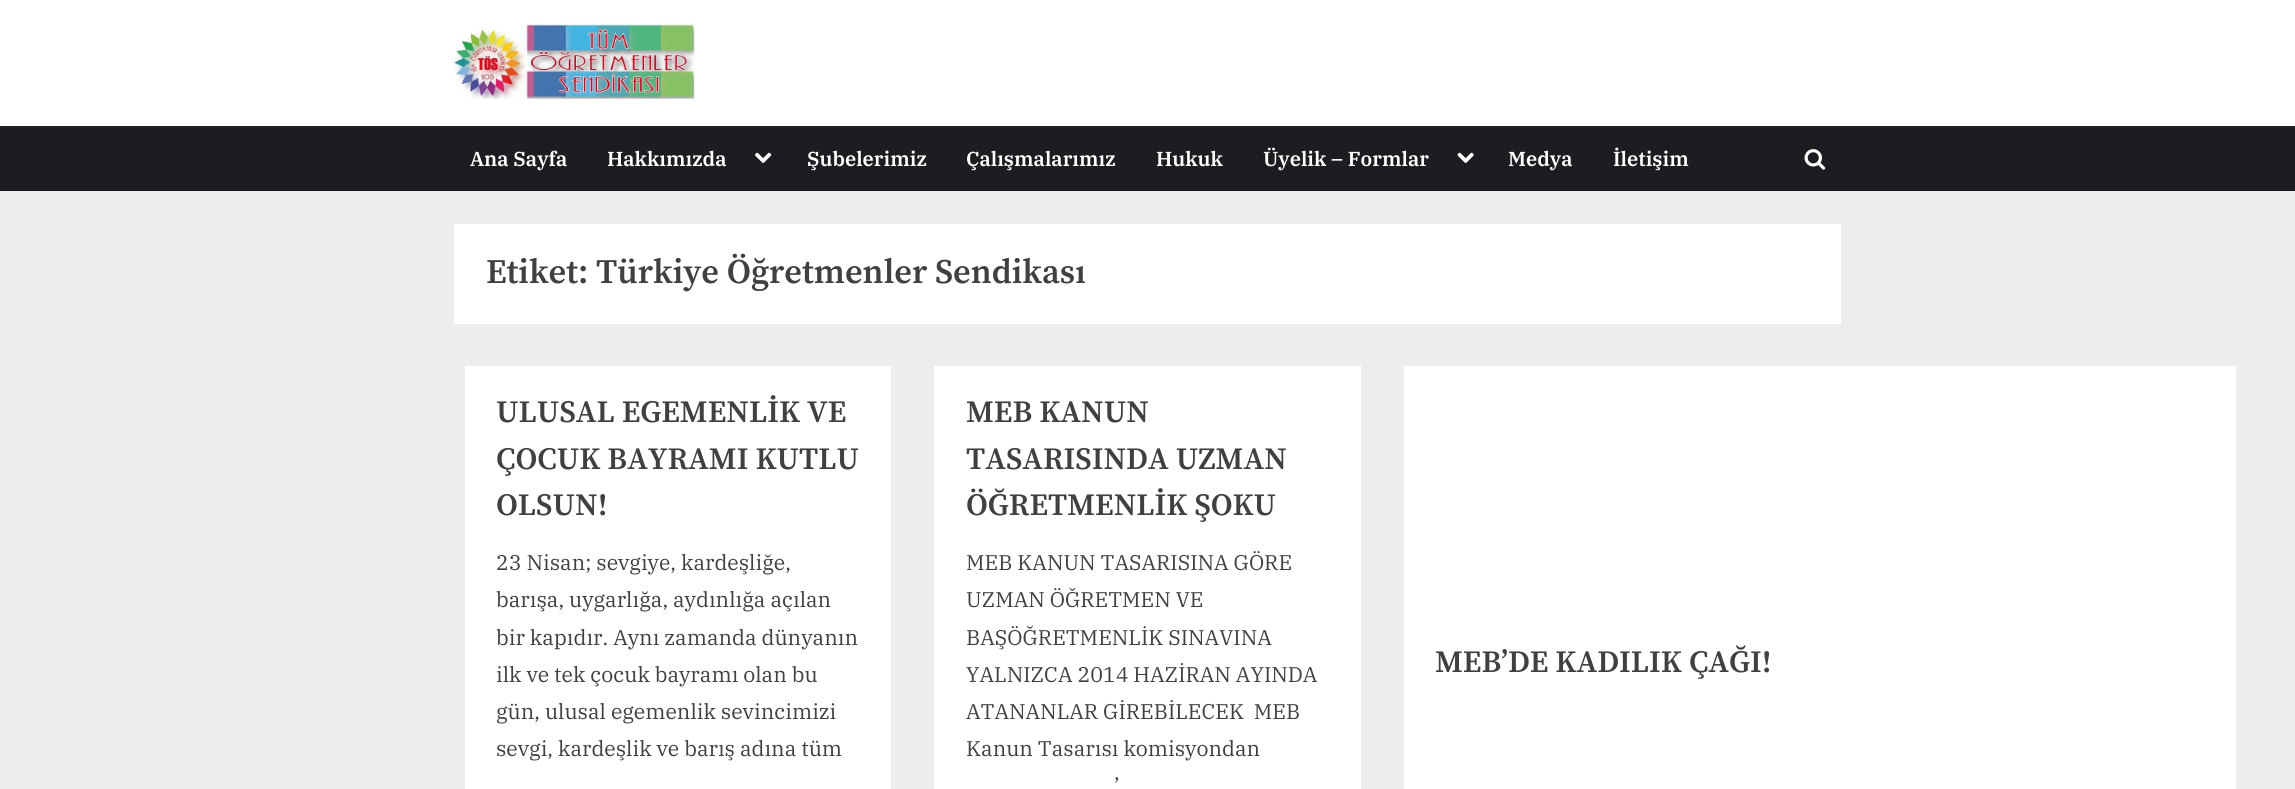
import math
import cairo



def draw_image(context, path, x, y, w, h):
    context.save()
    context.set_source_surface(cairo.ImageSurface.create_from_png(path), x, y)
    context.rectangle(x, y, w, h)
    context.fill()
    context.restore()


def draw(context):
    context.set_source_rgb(237 / 255, 237 / 255, 237 / 255)
    context.paint()
    context.set_source_rgb(1, 1, 1)
    context.rectangle(0, 0, 2295, 126)
    context.fill()
    draw_image(context, "images/1.png", 453, 23, 242, 76)
    context.set_source_rgb(28 / 255, 28 / 255, 33 / 255)
    context.rectangle(0, 126, 2295, 65)
    context.fill()
    draw_image(context, "images/2.png", 755, 152, 17, 11)
    draw_image(context, "images/3.png", 1457, 152, 17, 11)
    draw_image(context, "images/4.png", 1804, 149, 22, 21)
    context.set_source_rgb(1, 1, 1)
    context.rectangle(454, 224, 1387, 100)
    context.fill()
    context.rectangle(465, 366, 426, 423)
    context.fill()
    context.rectangle(934, 366, 427, 423)
    context.fill()
    context.rectangle(1404, 366, 832, 423)
    context.fill()
    context.select_font_face("IBM Plex Serif SemiBold")
    context.set_font_size(20.25)
    context.move_to(470, 166)
    context.show_text("Ana Sayfa")
    context.move_to(607, 166)
    context.show_text("Hakkımızda")
    context.move_to(807, 166)
    context.show_text("Şubelerimiz")
    context.move_to(966, 166)
    context.show_text("Çalışmalarımız")
    context.move_to(1156, 166)
    context.show_text("Hukuk")
    context.move_to(1263, 166)
    context.show_text("Üyelik – Formlar")
    context.move_to(1508, 166)
    context.show_text("Medya")
    context.move_to(1613, 166)
    context.show_text("İletişim")
    context.select_font_face("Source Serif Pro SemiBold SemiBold")
    context.set_font_size(34.4)
    context.set_source_rgb(64 / 255, 64 / 255, 64 / 255)
    context.move_to(486, 283)
    context.show_text("Etiket: Türkiye Öğretmenler Sendikası")
    context.set_font_size(31)
    context.move_to(496, 422)
    context.show_text("ULUSAL EGEMENLİK VE")
    context.move_to(496, 469)
    context.show_text("ÇOCUK BAYRAMI KUTLU")
    context.move_to(496, 515)
    context.show_text("OLSUN!")
    context.select_font_face("IBM Plex Serif")
    context.set_font_size(21.25)
    context.move_to(496, 570)
    context.show_text("23 Nisan; sevgiye, kardeşliğe,")
    context.move_to(496, 607)
    context.show_text("barışa, uygarlığa, aydınlığa açılan")
    context.move_to(496, 645)
    context.show_text("bir kapıdır. Aynı zamanda dünyanın")
    context.move_to(496, 682)
    context.show_text("ilk ve tek çocuk bayramı olan bu")
    context.move_to(496, 719)
    context.show_text("gün, ulusal egemenlik sevincimizi")
    context.move_to(496, 756)
    context.show_text("sevgi, kardeşlik ve barış adına tüm")
    context.select_font_face("Source Serif Pro SemiBold SemiBold")
    context.set_font_size(31)
    context.move_to(966, 422)
    context.show_text("MEB KANUN")
    context.move_to(966, 469)
    context.show_text("TASARISINDA UZMAN")
    context.move_to(966, 515)
    context.show_text("ÖĞRETMENLİK ŞOKU")
    context.select_font_face("IBM Plex Serif")
    context.set_font_size(21.25)
    context.move_to(966, 570)
    context.show_text("MEB KANUN TASARISINA GÖRE")
    context.move_to(966, 607)
    context.show_text("UZMAN ÖĞRETMEN VE")
    context.move_to(966, 645)
    context.show_text("BAŞÖĞRETMENLİK SINAVINA")
    context.move_to(966, 682)
    context.show_text("YALNIZCA 2014 HAZİRAN AYINDA")
    context.move_to(966, 719)
    context.show_text("ATANANLAR GİREBİLECEK  MEB")
    context.move_to(966, 756)
    context.show_text("Kanun Tasarısı komisyondan")
    context.move_to(1114, 793)
    context.show_text("’")
    context.select_font_face("Source Serif Pro SemiBold SemiBold")
    context.set_font_size(31)
    context.move_to(1435, 672)
    context.show_text("MEB’DE KADILIK ÇAĞI!")


surface = cairo.ImageSurface(cairo.Format.RGB24, 2295, 789)
context = cairo.Context(surface)
options = cairo.FontOptions()
options.set_hint_metrics(cairo.HintMetrics.OFF)
options.set_hint_style(cairo.HintStyle.NONE)
context.set_font_options(options)
context.set_miter_limit(4)
draw(context)
surface.write_to_png("out.png")
